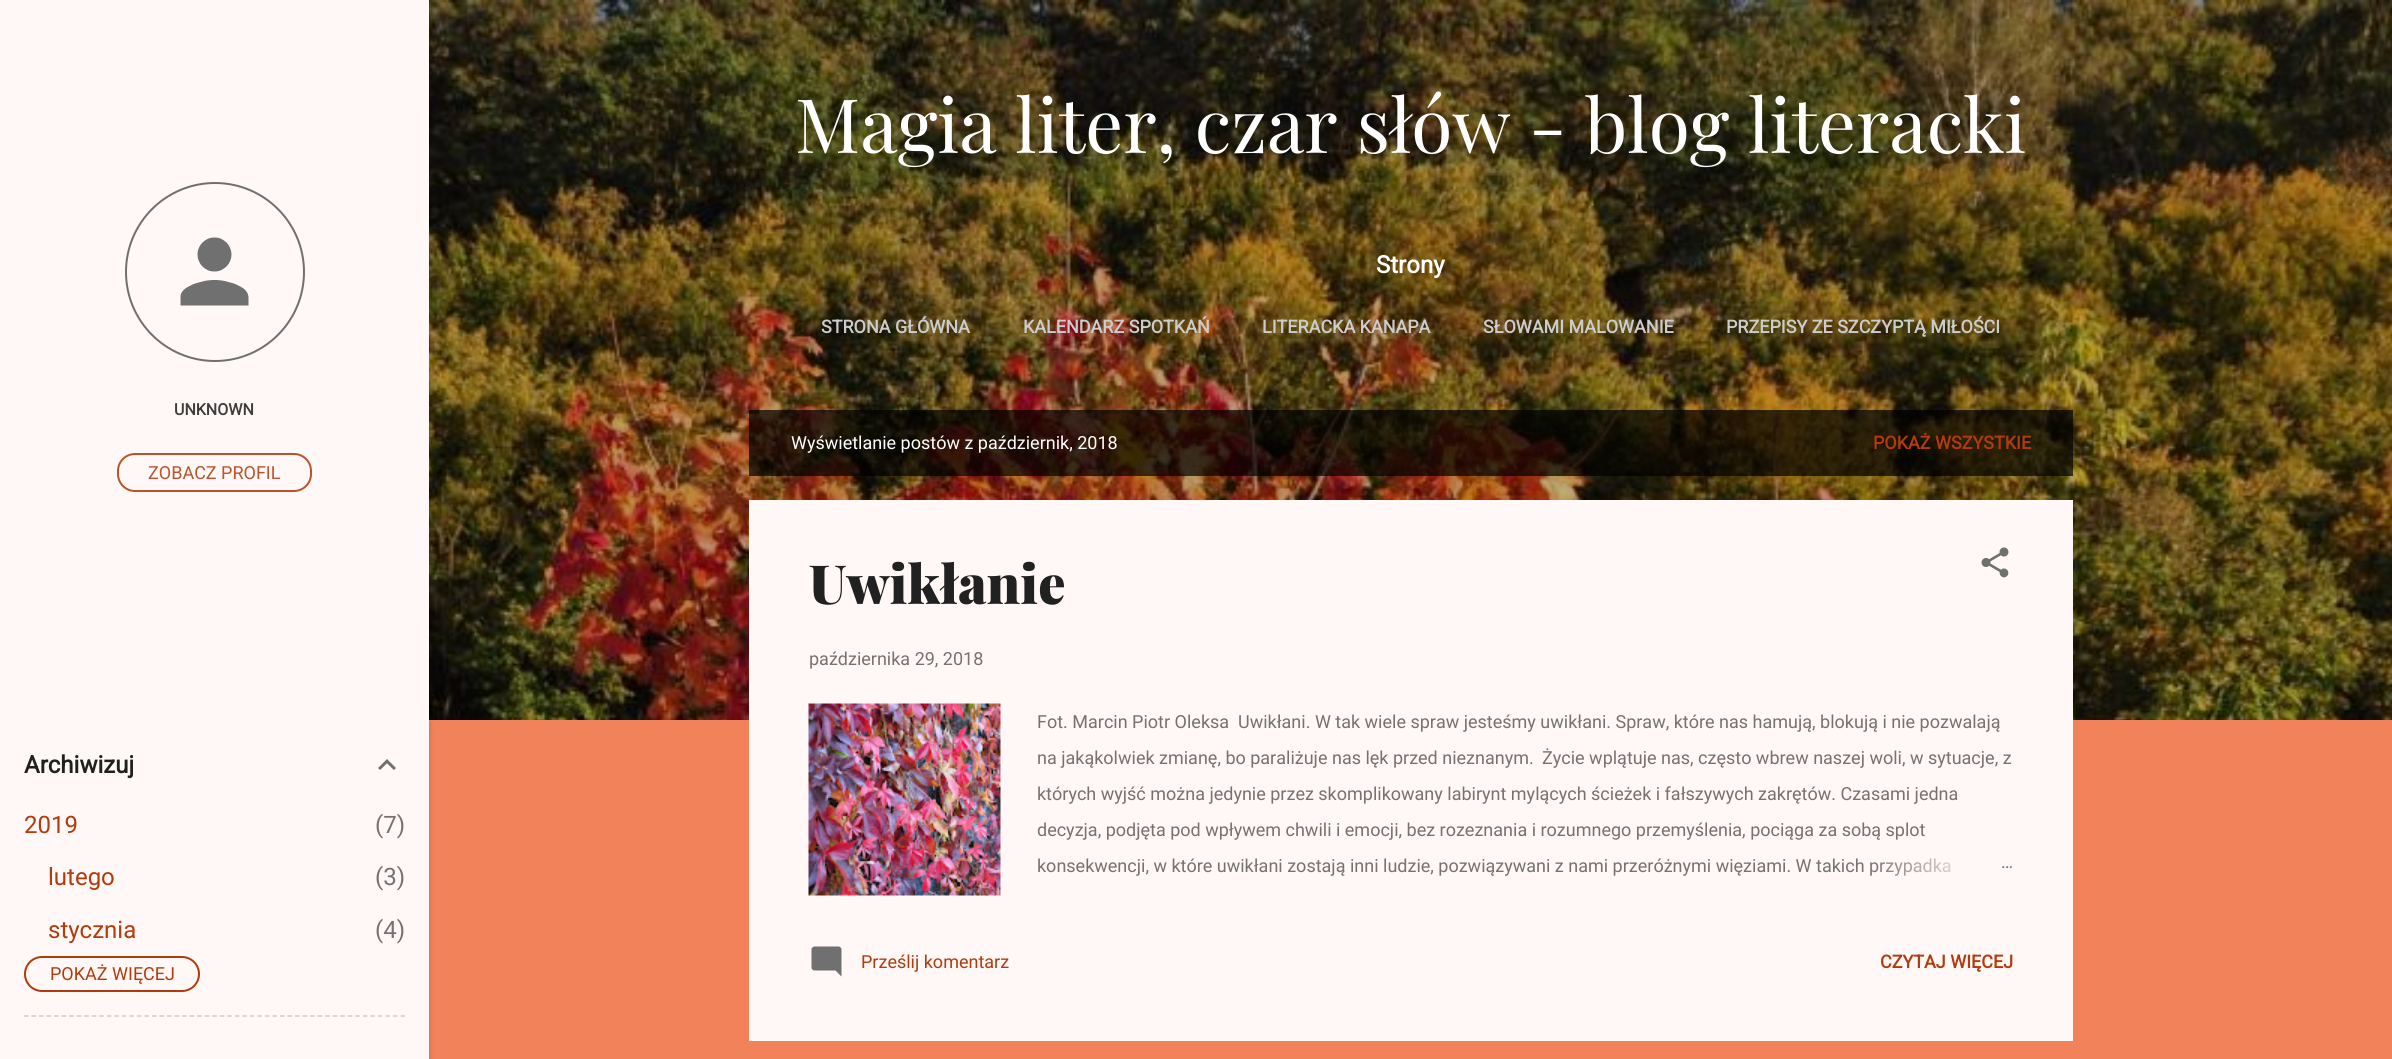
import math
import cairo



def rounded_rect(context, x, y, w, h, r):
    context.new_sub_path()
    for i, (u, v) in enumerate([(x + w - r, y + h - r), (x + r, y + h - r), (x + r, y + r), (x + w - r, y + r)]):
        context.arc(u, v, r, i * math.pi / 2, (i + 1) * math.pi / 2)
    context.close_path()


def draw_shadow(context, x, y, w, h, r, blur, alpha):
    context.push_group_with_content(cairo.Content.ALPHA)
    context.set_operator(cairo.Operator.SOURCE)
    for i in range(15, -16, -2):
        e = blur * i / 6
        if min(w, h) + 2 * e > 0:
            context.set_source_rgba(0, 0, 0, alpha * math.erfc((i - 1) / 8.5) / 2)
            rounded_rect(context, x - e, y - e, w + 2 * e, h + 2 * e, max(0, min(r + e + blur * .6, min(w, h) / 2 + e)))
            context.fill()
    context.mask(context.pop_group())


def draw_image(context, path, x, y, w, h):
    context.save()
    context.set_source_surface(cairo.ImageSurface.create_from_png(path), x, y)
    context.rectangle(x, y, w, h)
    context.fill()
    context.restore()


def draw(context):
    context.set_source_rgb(242 / 255, 130 / 255, 90 / 255)
    context.paint()
    draw_image(context, "images/3.png", 429, 0, 1963, 720)
    context.set_source_rgb(0, 0, 0)
    draw_shadow(context, 2, 722, 429, 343, 0, 2, 0.1)
    context.set_source_rgb(1, 248 / 255, 246 / 255)
    context.rectangle(0, 0, 429, 1059)
    context.fill()
    context.arc(215, 272, 89, 0, 2 * math.pi)
    context.set_source_rgb(112 / 255, 112 / 255, 112 / 255)
    context.stroke()
    draw_image(context, "images/1.png", 180, 237, 69, 69)
    rounded_rect(context, 118, 454, 193, 37, 17)
    context.set_source_rgb(189 / 255, 83 / 255, 43 / 255)
    context.stroke()
    draw_image(context, "images/2.png", 378, 759, 18, 11)
    rounded_rect(context, 25, 957, 174, 34, 17)
    context.set_source_rgb(179 / 255, 58 / 255, 13 / 255)
    context.stroke()
    context.new_path()
    context.move_to(24, 1016)
    context.line_to(405, 1016)
    context.set_source_rgb(204 / 255, 204 / 255, 204 / 255)
    context.set_line_width(1.5)
    context.set_dash([4.5, 3.03])
    context.stroke()
    context.set_source_rgba(0, 0, 0, 0.7)
    context.rectangle(749, 410, 1324, 66)
    context.fill()
    context.set_source_rgb(1, 248 / 255, 246 / 255)
    context.rectangle(749, 500, 1324, 541)
    context.fill()
    draw_image(context, "images/4.png", 1981, 547, 28, 31)
    draw_image(context, "images/5.png", 808, 703, 193, 193)
    draw_image(context, "images/6.png", 811, 946, 31, 31)
    context.select_font_face("Roboto", cairo.FontSlant.NORMAL, cairo.FontWeight.BOLD)
    context.set_font_size(16)
    context.set_source_rgb(62 / 255, 61 / 255, 61 / 255)
    context.move_to(174, 415)
    context.show_text("UNKNOWN")
    context.select_font_face("Roboto")
    context.set_font_size(18)
    context.set_source_rgb(189 / 255, 83 / 255, 43 / 255)
    context.move_to(148, 479)
    context.show_text("ZOBACZ PROFIL")
    context.select_font_face("Roboto", cairo.FontSlant.NORMAL, cairo.FontWeight.BOLD)
    context.set_font_size(24)
    context.set_source_rgb(33 / 255, 33 / 255, 33 / 255)
    context.move_to(24, 773)
    context.show_text("Archiwizuj")
    context.select_font_face("Roboto")
    context.set_source_rgb(179 / 255, 58 / 255, 13 / 255)
    context.move_to(24, 833)
    context.show_text("2019")
    context.set_source_rgb(117 / 255, 114 / 255, 113 / 255)
    context.move_to(375, 833)
    context.show_text("(7)")
    context.set_source_rgb(179 / 255, 58 / 255, 13 / 255)
    context.move_to(48, 885)
    context.show_text("lutego")
    context.set_source_rgb(117 / 255, 114 / 255, 113 / 255)
    context.move_to(375, 885)
    context.show_text("(3)")
    context.set_source_rgb(179 / 255, 58 / 255, 13 / 255)
    context.move_to(48, 938)
    context.show_text("stycznia")
    context.set_source_rgb(117 / 255, 114 / 255, 113 / 255)
    context.move_to(375, 938)
    context.show_text("(4)")
    context.set_font_size(18)
    context.set_source_rgb(179 / 255, 58 / 255, 13 / 255)
    context.move_to(50, 980)
    context.show_text("POKAŻ WIĘCEJ")
    context.select_font_face("Playfair Display")
    context.set_font_size(75)
    context.set_source_rgb(1, 1, 1)
    context.move_to(795, 153)
    context.show_text("Magia liter, czar słów - blog literacki")
    context.select_font_face("Roboto", cairo.FontSlant.NORMAL, cairo.FontWeight.BOLD)
    context.set_font_size(24)
    context.move_to(1376, 273)
    context.show_text("Strony")
    context.set_font_size(18)
    context.set_source_rgb(204 / 255, 204 / 255, 204 / 255)
    context.move_to(821, 333)
    context.show_text("STRONA GŁÓWNA")
    context.move_to(1023, 333)
    context.show_text("KALENDARZ SPOTKAŃ")
    context.move_to(1262, 333)
    context.show_text("LITERACKA KANAPA")
    context.move_to(1483, 333)
    context.show_text("SŁOWAMI MALOWANIE")
    context.move_to(1726, 333)
    context.show_text("PRZEPISY ZE SZCZYPTĄ MIŁOŚCI")
    context.select_font_face("Roboto")
    context.set_source_rgb(1, 1, 1)
    context.move_to(791, 449)
    context.show_text("Wyświetlanie postów z październik, 2018")
    context.select_font_face("Roboto", cairo.FontSlant.NORMAL, cairo.FontWeight.BOLD)
    context.set_source_rgb(179 / 255, 58 / 255, 13 / 255)
    context.move_to(1873, 449)
    context.show_text("POKAŻ WSZYSTKIE")
    context.select_font_face("Playfair Display Black")
    context.set_font_size(54)
    context.set_source_rgb(33 / 255, 33 / 255, 33 / 255)
    context.move_to(809, 604)
    context.show_text("Uwikłanie")
    context.select_font_face("Roboto")
    context.set_font_size(18)
    context.set_source_rgb(117 / 255, 114 / 255, 113 / 255)
    context.move_to(809, 665)
    context.show_text("października 29, 2018")
    context.move_to(1037, 728)
    context.show_text("Fot. Marcin Piotr Oleksa")
    context.move_to(1238, 728)
    context.show_text("Uwikłani. W tak wiele spraw jesteśmy uwikłani. Spraw, które nas hamują, blokują i nie pozwalają")
    context.move_to(1037, 764)
    context.show_text("na jakąkolwiek zmianę, bo paraliżuje nas lęk przed nieznanym.")
    context.move_to(1542, 764)
    context.show_text("Życie wplątuje nas, często wbrew naszej woli, w sytuacje, z")
    context.move_to(1037, 800)
    context.show_text("których wyjść można jedynie przez skomplikowany labirynt mylących ścieżek i fałszywych zakrętów. Czasami jedna")
    context.move_to(1037, 836)
    context.show_text("decyzja, podjęta pod wpływem chwili i emocji, bez rozeznania i rozumnego przemyślenia, pociąga za sobą splot")
    context.move_to(1037, 872)
    context.show_text("konsekwencji, w które uwikłani zostają inni ludzie, pozwiązywani z nami przeróżnymi więziami. W takich przypadka")
    gradient = cairo.LinearGradient(2013, 866, 1869, 866)
    gradient.add_color_stop_rgba(0, 1, 248 / 255, 246 / 255, 1)
    gradient.add_color_stop_rgba(0.2, 1, 248 / 255, 246 / 255, 1)
    gradient.add_color_stop_rgba(1, 1, 248 / 255, 246 / 255, 0)
    context.set_source(gradient)
    context.rectangle(1871, 858, 80, 18)
    context.fill()
    context.set_source_rgb(117 / 255, 114 / 255, 113 / 255)
    context.move_to(2001, 868)
    context.show_text("…")
    context.set_source_rgb(179 / 255, 58 / 255, 13 / 255)
    context.move_to(861, 968)
    context.show_text("Prześlij komentarz")
    context.select_font_face("Roboto", cairo.FontSlant.NORMAL, cairo.FontWeight.BOLD)
    context.move_to(1880, 968)
    context.show_text("CZYTAJ WIĘCEJ")


surface = cairo.ImageSurface(cairo.Format.RGB24, 2392, 1059)
context = cairo.Context(surface)
options = cairo.FontOptions()
options.set_hint_metrics(cairo.HintMetrics.OFF)
options.set_hint_style(cairo.HintStyle.NONE)
context.set_font_options(options)
context.set_miter_limit(4)
draw(context)
surface.write_to_png("out.png")
